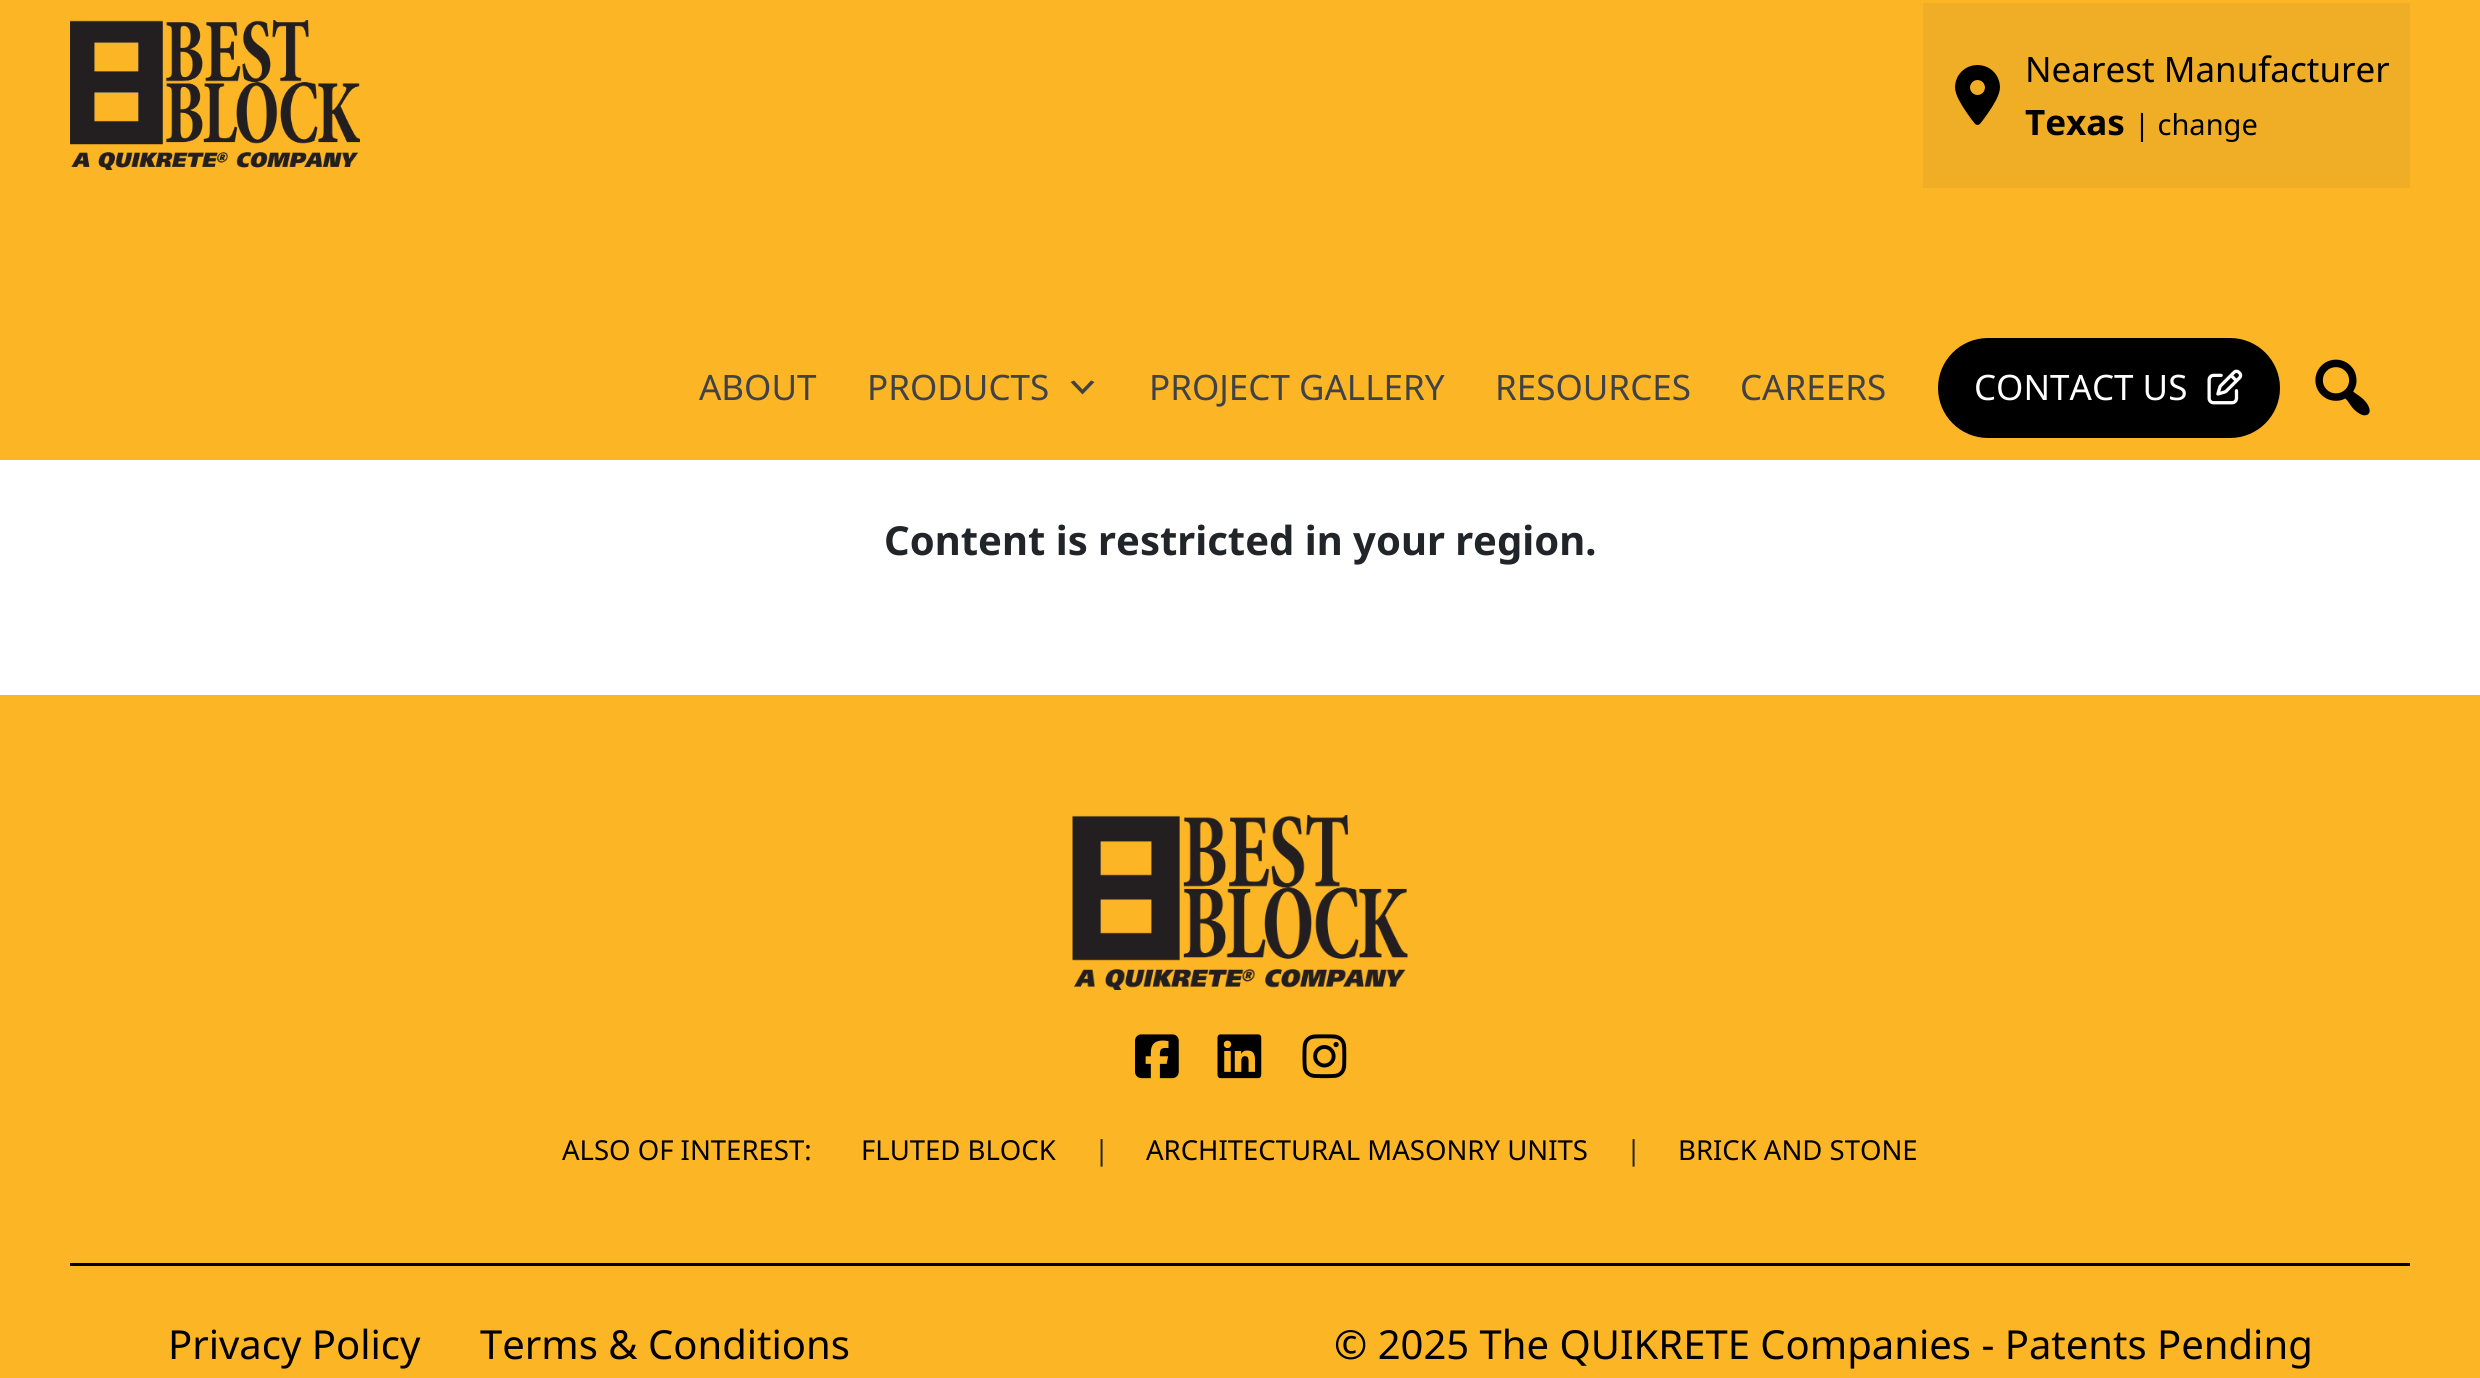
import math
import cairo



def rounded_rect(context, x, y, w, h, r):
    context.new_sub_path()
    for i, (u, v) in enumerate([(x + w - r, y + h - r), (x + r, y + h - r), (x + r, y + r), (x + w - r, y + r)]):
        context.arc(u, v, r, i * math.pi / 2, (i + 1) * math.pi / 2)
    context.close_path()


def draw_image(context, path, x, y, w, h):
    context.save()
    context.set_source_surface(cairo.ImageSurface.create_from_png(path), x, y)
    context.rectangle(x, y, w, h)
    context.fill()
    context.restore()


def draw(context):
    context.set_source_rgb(1, 1, 1)
    context.paint()
    context.set_source_rgb(252 / 255, 181 / 255, 37 / 255)
    context.rectangle(0, 0, 2480, 460)
    context.fill()
    draw_image(context, "images/1.png", 70, 20, 290, 150)
    context.set_source_rgb(240 / 255, 174 / 255, 38 / 255)
    context.rectangle(1923, 3, 487, 185)
    context.fill()
    draw_image(context, "images/2.png", 1955, 65, 45, 60)
    context.set_source_rgb(64 / 255, 66 / 255, 72 / 255)
    context.new_path()
    context.move_to(1074, 380.5)
    context.line_to(1082.5, 389.5)
    context.line_to(1091, 380.5)
    context.line_to(1094.5, 382)
    context.line_to(1082.5, 394.5)
    context.line_to(1070.5, 382)
    context.close_path()
    context.fill()
    context.set_source_rgb(0, 0, 0)
    rounded_rect(context, 1938, 338, 342, 100, 50)
    context.fill()
    draw_image(context, "images/3.png", 2207, 369, 36, 36)
    draw_image(context, "images/4.png", 2315, 359, 55, 57)
    context.set_source_rgb(252 / 255, 181 / 255, 37 / 255)
    context.rectangle(0, 695, 2480, 683)
    context.fill()
    draw_image(context, "images/5.png", 1072, 815, 336, 175)
    draw_image(context, "images/6.png", 1135, 1034, 44, 45)
    draw_image(context, "images/7.png", 1217, 1034, 45, 45)
    draw_image(context, "images/8.png", 1302, 1034, 45, 45)
    context.set_source_rgb(0, 0, 0)
    context.rectangle(70, 1263, 2340, 3)
    context.fill()
    context.select_font_face("Noto Sans")
    context.set_font_size(35)
    context.move_to(2025, 82)
    context.show_text("Nearest Manufacturer")
    context.select_font_face("Noto Sans", cairo.FontSlant.NORMAL, cairo.FontWeight.BOLD)
    context.move_to(2025, 135)
    context.show_text("Texas")
    context.select_font_face("Noto Sans")
    context.set_font_size(29)
    context.move_to(2134, 135)
    context.show_text("| change")
    context.set_font_size(35)
    context.set_source_rgb(64 / 255, 66 / 255, 72 / 255)
    context.move_to(699, 400)
    context.show_text("ABOUT")
    context.move_to(867, 400)
    context.show_text("PRODUCTS")
    context.move_to(1149, 400)
    context.show_text("PROJECT GALLERY")
    context.move_to(1495, 400)
    context.show_text("RESOURCES")
    context.move_to(1740, 400)
    context.show_text("CAREERS")
    context.set_source_rgb(1, 1, 1)
    context.move_to(1974, 400)
    context.show_text("CONTACT US")
    context.select_font_face("Noto Sans", cairo.FontSlant.NORMAL, cairo.FontWeight.BOLD)
    context.set_font_size(40)
    context.set_source_rgb(33 / 255, 37 / 255, 41 / 255)
    context.move_to(884, 555)
    context.show_text("Content is restricted in your region.")
    context.select_font_face("Noto Sans")
    context.set_font_size(27.5)
    context.set_source_rgb(0, 0, 0)
    context.move_to(562, 1160)
    context.show_text("ALSO OF INTEREST:")
    context.move_to(861, 1160)
    context.show_text("FLUTED BLOCK")
    context.set_source_rgb(33 / 255, 37 / 255, 41 / 255)
    context.move_to(1094, 1160)
    context.show_text("|")
    context.set_source_rgb(0, 0, 0)
    context.move_to(1146, 1160)
    context.show_text("ARCHITECTURAL MASONRY UNITS")
    context.set_source_rgb(33 / 255, 37 / 255, 41 / 255)
    context.move_to(1626, 1160)
    context.show_text("|")
    context.set_source_rgb(0, 0, 0)
    context.move_to(1678, 1160)
    context.show_text("BRICK AND STONE")
    context.set_font_size(40)
    context.move_to(168, 1359)
    context.show_text("Privacy Policy")
    context.move_to(480, 1359)
    context.show_text("Terms & Conditions")
    context.move_to(1334, 1359)
    context.show_text("© 2025 The QUIKRETE Companies - Patents Pending")


surface = cairo.ImageSurface(cairo.Format.RGB24, 2480, 1378)
context = cairo.Context(surface)
options = cairo.FontOptions()
options.set_hint_metrics(cairo.HintMetrics.OFF)
options.set_hint_style(cairo.HintStyle.NONE)
context.set_font_options(options)
context.set_miter_limit(4)
draw(context)
surface.write_to_png("out.png")
